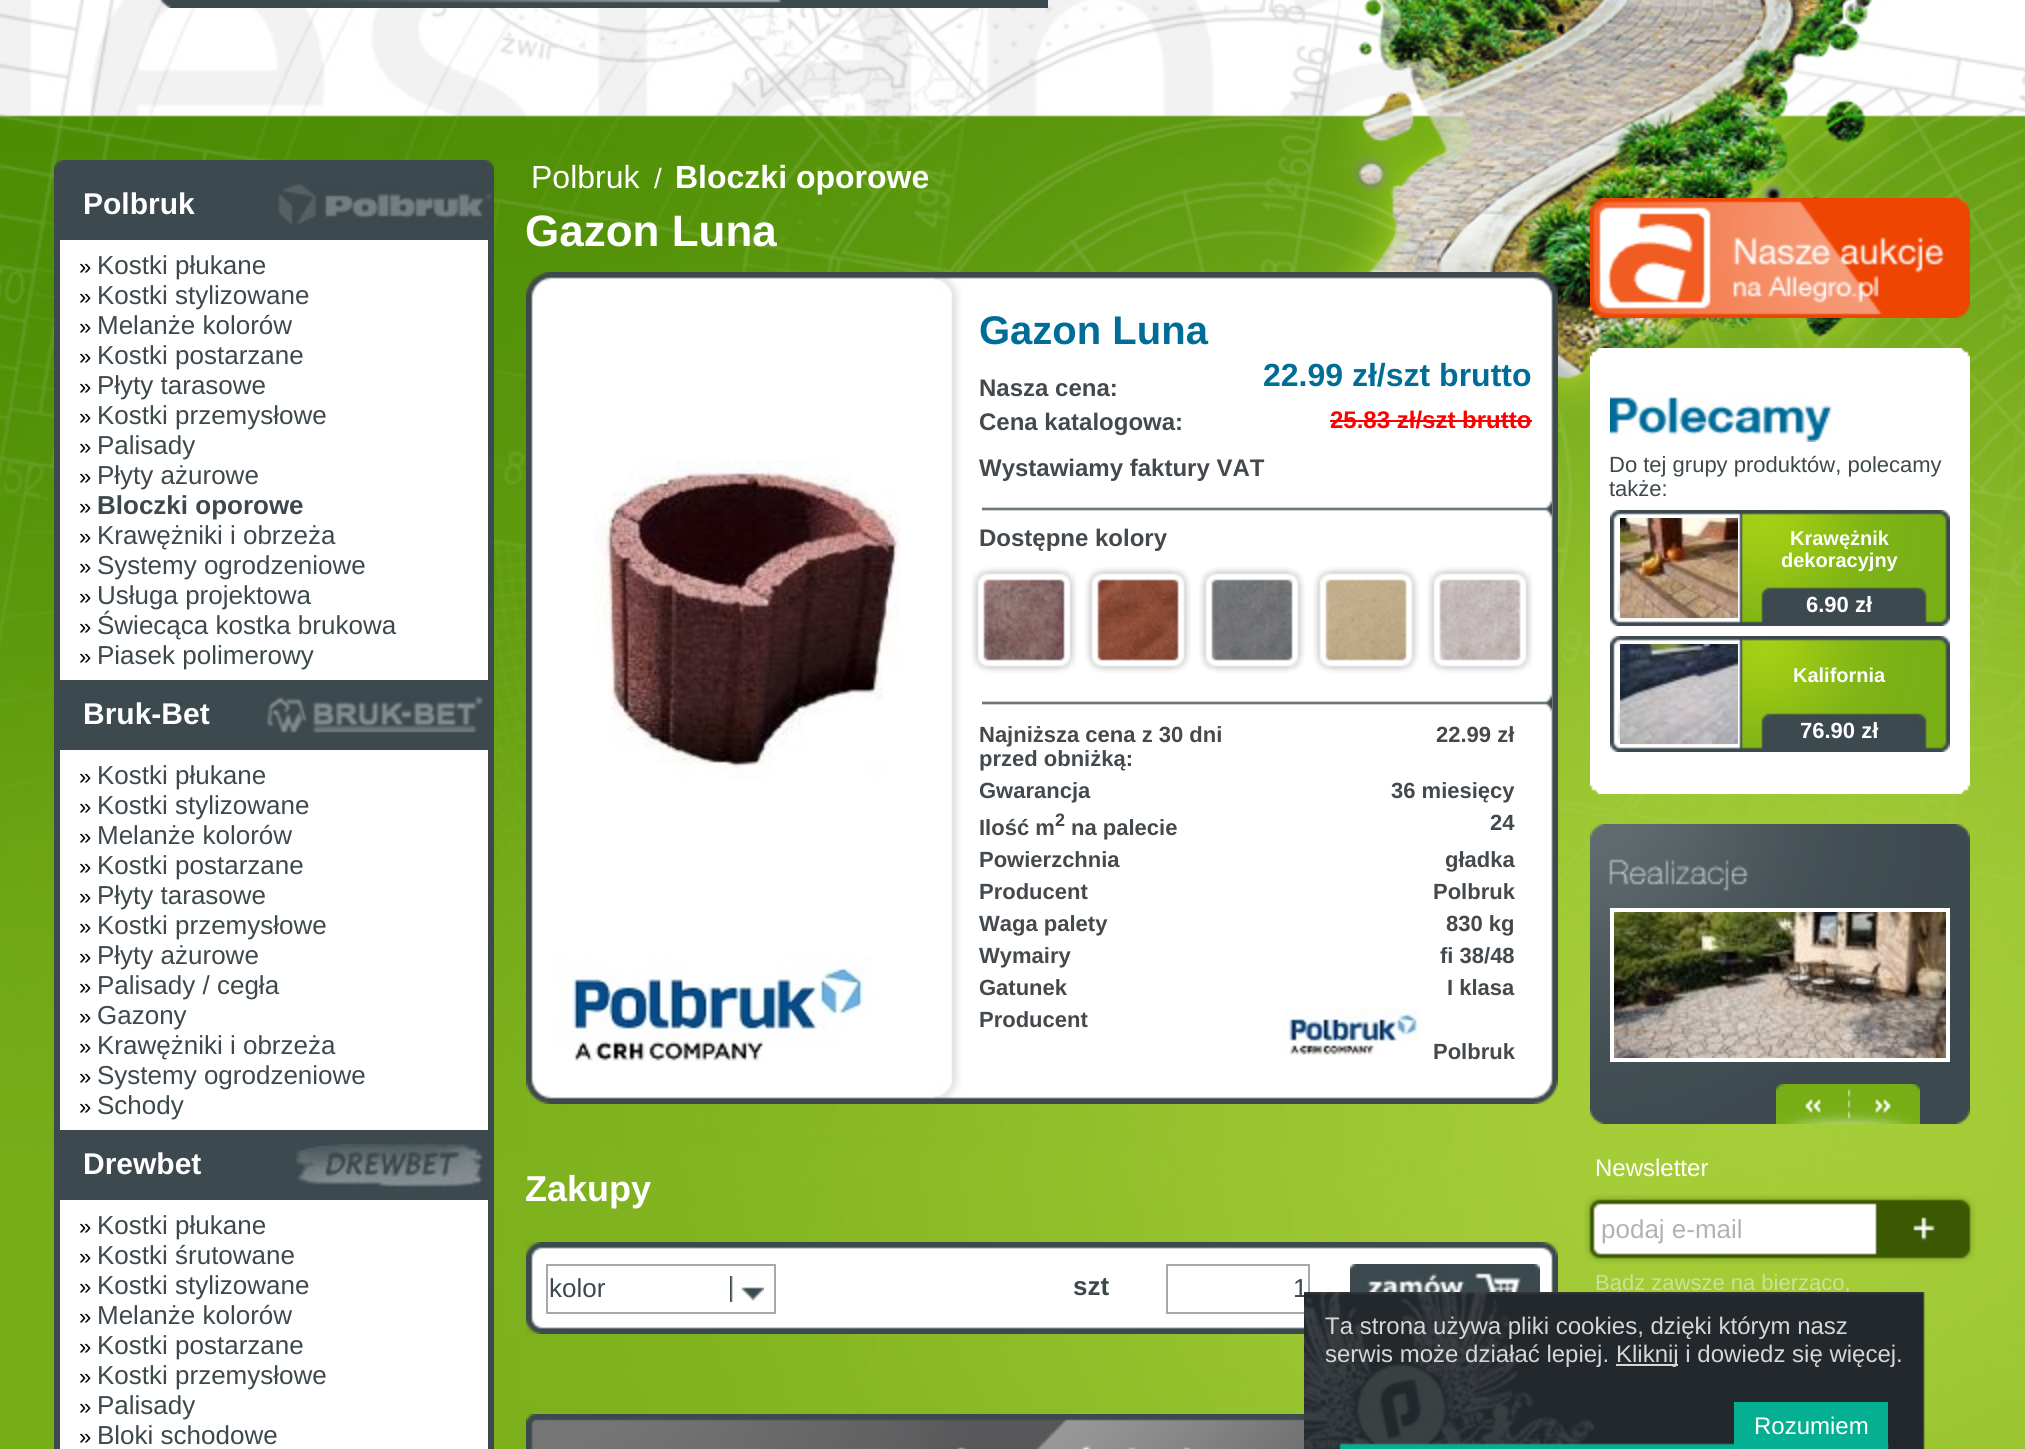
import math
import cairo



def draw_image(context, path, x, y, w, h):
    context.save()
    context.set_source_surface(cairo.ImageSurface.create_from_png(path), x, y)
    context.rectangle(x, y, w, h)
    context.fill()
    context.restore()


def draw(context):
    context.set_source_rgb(1, 1, 1)
    context.paint()
    draw_image(context, "images/1.png", 0, 0, 2025, 1449)
    draw_image(context, "images/2.png", 159, 0, 889, 8)
    draw_image(context, "images/3.png", 54, 160, 440, 10)
    context.set_source_rgb(60 / 255, 73 / 255, 78 / 255)
    context.rectangle(54, 170, 440, 1030)
    context.fill()
    draw_image(context, "images/4.png", 278, 183, 214, 42)
    context.set_source_rgb(1, 1, 1)
    context.rectangle(60, 240, 428, 440)
    context.fill()
    draw_image(context, "images/5.png", 266, 696, 218, 37)
    context.rectangle(60, 750, 428, 380)
    context.fill()
    draw_image(context, "images/6.png", 295, 1142, 188, 46)
    context.rectangle(60, 1200, 428, 249)
    context.fill()
    context.set_source_rgb(60 / 255, 73 / 255, 78 / 255)
    context.rectangle(488, 1200, 6, 249)
    context.fill()
    context.rectangle(54, 1200, 6, 249)
    context.fill()
    draw_image(context, "images/7.png", 526, 272, 1032, 28)
    draw_image(context, "images/8.png", 526, 300, 1032, 776)
    draw_image(context, "images/9.png", 594, 460, 307, 319)
    context.set_source_rgb(254 / 255, 0, 0)
    context.rectangle(1330, 420, 202, 2)
    context.fill()
    draw_image(context, "images/10.png", 982, 500, 570, 18)
    draw_image(context, "images/11.png", 971, 567, 106, 106)
    draw_image(context, "images/12.png", 1085, 567, 106, 106)
    draw_image(context, "images/13.png", 1199, 567, 106, 106)
    draw_image(context, "images/14.png", 1313, 567, 106, 106)
    draw_image(context, "images/15.png", 1427, 567, 106, 106)
    draw_image(context, "images/10.png", 982, 694, 570, 18)
    draw_image(context, "images/16.png", 1282, 1008, 140, 47)
    draw_image(context, "images/17.png", 554, 955, 320, 107)
    draw_image(context, "images/18.png", 526, 1076, 1032, 28)
    draw_image(context, "images/19.png", 526, 1242, 1032, 20)
    draw_image(context, "images/20.png", 526, 1262, 1032, 52)
    draw_image(context, "images/21.png", 730, 1276, 34, 26)
    context.rectangle(547, 1265, 228, 48)
    context.set_source_rgb(168 / 255, 168 / 255, 168 / 255)
    context.stroke()
    context.rectangle(1167, 1265, 142, 48)
    context.stroke()
    draw_image(context, "images/22.png", 1350, 1264, 190, 28)
    draw_image(context, "images/23.png", 526, 1314, 778, 20)
    draw_image(context, "images/24.png", 526, 1414, 778, 35)
    draw_image(context, "images/25.png", 1590, 198, 380, 120)
    draw_image(context, "images/26.png", 1590, 348, 380, 40)
    context.set_source_rgb(1, 1, 1)
    context.rectangle(1590, 388, 380, 374)
    context.fill()
    draw_image(context, "images/27.png", 1610, 397, 222, 45)
    draw_image(context, "images/28.png", 1610, 510, 340, 116)
    draw_image(context, "images/29.png", 1620, 518, 118, 100)
    draw_image(context, "images/28.png", 1610, 636, 340, 116)
    draw_image(context, "images/30.png", 1620, 644, 118, 100)
    draw_image(context, "images/31.png", 1590, 762, 380, 32)
    draw_image(context, "images/32.png", 1590, 824, 380, 300)
    context.rectangle(1612, 910, 336, 150)
    context.set_line_width(4)
    context.stroke()
    draw_image(context, "images/33.png", 1614, 912, 332, 146)
    draw_image(context, "images/34.png", 1776, 1084, 72, 40)
    draw_image(context, "images/35.png", 1848, 1084, 72, 40)
    draw_image(context, "images/36.png", 1584, 1194, 392, 70)
    context.select_font_face("Liberation Sans", cairo.FontSlant.NORMAL, cairo.FontWeight.BOLD)
    context.set_font_size(30)
    context.move_to(83, 214)
    context.show_text("Polbruk")
    context.select_font_face("Liberation Sans")
    context.set_font_size(22)
    context.set_source_rgb(0, 0, 0)
    context.move_to(79, 274)
    context.show_text("»")
    context.set_font_size(26)
    context.set_source_rgb(61 / 255, 72 / 255, 76 / 255)
    context.move_to(97, 274)
    context.show_text("Kostki płukane")
    context.set_font_size(22)
    context.set_source_rgb(0, 0, 0)
    context.move_to(79, 304)
    context.show_text("»")
    context.set_font_size(26)
    context.set_source_rgb(61 / 255, 72 / 255, 76 / 255)
    context.move_to(97, 304)
    context.show_text("Kostki stylizowane")
    context.set_font_size(22)
    context.set_source_rgb(0, 0, 0)
    context.move_to(79, 334)
    context.show_text("»")
    context.set_font_size(26)
    context.set_source_rgb(61 / 255, 72 / 255, 76 / 255)
    context.move_to(97, 334)
    context.show_text("Melanże kolorów")
    context.set_font_size(22)
    context.set_source_rgb(0, 0, 0)
    context.move_to(79, 364)
    context.show_text("»")
    context.set_font_size(26)
    context.set_source_rgb(61 / 255, 72 / 255, 76 / 255)
    context.move_to(97, 364)
    context.show_text("Kostki postarzane")
    context.set_font_size(22)
    context.set_source_rgb(0, 0, 0)
    context.move_to(79, 394)
    context.show_text("»")
    context.set_font_size(26)
    context.set_source_rgb(61 / 255, 72 / 255, 76 / 255)
    context.move_to(97, 394)
    context.show_text("Płyty tarasowe")
    context.set_font_size(22)
    context.set_source_rgb(0, 0, 0)
    context.move_to(79, 424)
    context.show_text("»")
    context.set_font_size(26)
    context.set_source_rgb(61 / 255, 72 / 255, 76 / 255)
    context.move_to(97, 424)
    context.show_text("Kostki przemysłowe")
    context.set_font_size(22)
    context.set_source_rgb(0, 0, 0)
    context.move_to(79, 454)
    context.show_text("»")
    context.set_font_size(26)
    context.set_source_rgb(61 / 255, 72 / 255, 76 / 255)
    context.move_to(97, 454)
    context.show_text("Palisady")
    context.set_font_size(22)
    context.set_source_rgb(0, 0, 0)
    context.move_to(79, 484)
    context.show_text("»")
    context.set_font_size(26)
    context.set_source_rgb(61 / 255, 72 / 255, 76 / 255)
    context.move_to(97, 484)
    context.show_text("Płyty ażurowe")
    context.set_font_size(22)
    context.set_source_rgb(0, 0, 0)
    context.move_to(79, 514)
    context.show_text("»")
    context.select_font_face("Liberation Sans", cairo.FontSlant.NORMAL, cairo.FontWeight.BOLD)
    context.set_font_size(26)
    context.set_source_rgb(61 / 255, 72 / 255, 76 / 255)
    context.move_to(97, 514)
    context.show_text("Bloczki oporowe")
    context.select_font_face("Liberation Sans")
    context.set_font_size(22)
    context.set_source_rgb(0, 0, 0)
    context.move_to(79, 544)
    context.show_text("»")
    context.set_font_size(26)
    context.set_source_rgb(61 / 255, 72 / 255, 76 / 255)
    context.move_to(97, 544)
    context.show_text("Krawężniki i obrzeża")
    context.set_font_size(22)
    context.set_source_rgb(0, 0, 0)
    context.move_to(79, 574)
    context.show_text("»")
    context.set_font_size(26)
    context.set_source_rgb(61 / 255, 72 / 255, 76 / 255)
    context.move_to(97, 574)
    context.show_text("Systemy ogrodzeniowe")
    context.set_font_size(22)
    context.set_source_rgb(0, 0, 0)
    context.move_to(79, 604)
    context.show_text("»")
    context.set_font_size(26)
    context.set_source_rgb(61 / 255, 72 / 255, 76 / 255)
    context.move_to(97, 604)
    context.show_text("Usługa projektowa")
    context.set_font_size(22)
    context.set_source_rgb(0, 0, 0)
    context.move_to(79, 634)
    context.show_text("»")
    context.set_font_size(26)
    context.set_source_rgb(61 / 255, 72 / 255, 76 / 255)
    context.move_to(97, 634)
    context.show_text("Świecąca kostka brukowa")
    context.set_font_size(22)
    context.set_source_rgb(0, 0, 0)
    context.move_to(79, 664)
    context.show_text("»")
    context.set_font_size(26)
    context.set_source_rgb(61 / 255, 72 / 255, 76 / 255)
    context.move_to(97, 664)
    context.show_text("Piasek polimerowy")
    context.select_font_face("Liberation Sans", cairo.FontSlant.NORMAL, cairo.FontWeight.BOLD)
    context.set_font_size(30)
    context.set_source_rgb(1, 1, 1)
    context.move_to(83, 724)
    context.show_text("Bruk-Bet")
    context.select_font_face("Liberation Sans")
    context.set_font_size(22)
    context.set_source_rgb(0, 0, 0)
    context.move_to(79, 784)
    context.show_text("»")
    context.set_font_size(26)
    context.set_source_rgb(61 / 255, 72 / 255, 76 / 255)
    context.move_to(97, 784)
    context.show_text("Kostki płukane")
    context.set_font_size(22)
    context.set_source_rgb(0, 0, 0)
    context.move_to(79, 814)
    context.show_text("»")
    context.set_font_size(26)
    context.set_source_rgb(61 / 255, 72 / 255, 76 / 255)
    context.move_to(97, 814)
    context.show_text("Kostki stylizowane")
    context.set_font_size(22)
    context.set_source_rgb(0, 0, 0)
    context.move_to(79, 844)
    context.show_text("»")
    context.set_font_size(26)
    context.set_source_rgb(61 / 255, 72 / 255, 76 / 255)
    context.move_to(97, 844)
    context.show_text("Melanże kolorów")
    context.set_font_size(22)
    context.set_source_rgb(0, 0, 0)
    context.move_to(79, 874)
    context.show_text("»")
    context.set_font_size(26)
    context.set_source_rgb(61 / 255, 72 / 255, 76 / 255)
    context.move_to(97, 874)
    context.show_text("Kostki postarzane")
    context.set_font_size(22)
    context.set_source_rgb(0, 0, 0)
    context.move_to(79, 904)
    context.show_text("»")
    context.set_font_size(26)
    context.set_source_rgb(61 / 255, 72 / 255, 76 / 255)
    context.move_to(97, 904)
    context.show_text("Płyty tarasowe")
    context.set_font_size(22)
    context.set_source_rgb(0, 0, 0)
    context.move_to(79, 934)
    context.show_text("»")
    context.set_font_size(26)
    context.set_source_rgb(61 / 255, 72 / 255, 76 / 255)
    context.move_to(97, 934)
    context.show_text("Kostki przemysłowe")
    context.set_font_size(22)
    context.set_source_rgb(0, 0, 0)
    context.move_to(79, 964)
    context.show_text("»")
    context.set_font_size(26)
    context.set_source_rgb(61 / 255, 72 / 255, 76 / 255)
    context.move_to(97, 964)
    context.show_text("Płyty ażurowe")
    context.set_font_size(22)
    context.set_source_rgb(0, 0, 0)
    context.move_to(79, 994)
    context.show_text("»")
    context.set_font_size(26)
    context.set_source_rgb(61 / 255, 72 / 255, 76 / 255)
    context.move_to(97, 994)
    context.show_text("Palisady / cegła")
    context.set_font_size(22)
    context.set_source_rgb(0, 0, 0)
    context.move_to(79, 1024)
    context.show_text("»")
    context.set_font_size(26)
    context.set_source_rgb(61 / 255, 72 / 255, 76 / 255)
    context.move_to(97, 1024)
    context.show_text("Gazony")
    context.set_font_size(22)
    context.set_source_rgb(0, 0, 0)
    context.move_to(79, 1054)
    context.show_text("»")
    context.set_font_size(26)
    context.set_source_rgb(61 / 255, 72 / 255, 76 / 255)
    context.move_to(97, 1054)
    context.show_text("Krawężniki i obrzeża")
    context.set_font_size(22)
    context.set_source_rgb(0, 0, 0)
    context.move_to(79, 1084)
    context.show_text("»")
    context.set_font_size(26)
    context.set_source_rgb(61 / 255, 72 / 255, 76 / 255)
    context.move_to(97, 1084)
    context.show_text("Systemy ogrodzeniowe")
    context.set_font_size(22)
    context.set_source_rgb(0, 0, 0)
    context.move_to(79, 1114)
    context.show_text("»")
    context.set_font_size(26)
    context.set_source_rgb(61 / 255, 72 / 255, 76 / 255)
    context.move_to(97, 1114)
    context.show_text("Schody")
    context.select_font_face("Liberation Sans", cairo.FontSlant.NORMAL, cairo.FontWeight.BOLD)
    context.set_font_size(30)
    context.set_source_rgb(1, 1, 1)
    context.move_to(83, 1174)
    context.show_text("Drewbet")
    context.select_font_face("Liberation Sans")
    context.set_font_size(22)
    context.set_source_rgb(0, 0, 0)
    context.move_to(79, 1234)
    context.show_text("»")
    context.set_font_size(26)
    context.set_source_rgb(61 / 255, 72 / 255, 76 / 255)
    context.move_to(97, 1234)
    context.show_text("Kostki płukane")
    context.set_font_size(22)
    context.set_source_rgb(0, 0, 0)
    context.move_to(79, 1264)
    context.show_text("»")
    context.set_font_size(26)
    context.set_source_rgb(61 / 255, 72 / 255, 76 / 255)
    context.move_to(97, 1264)
    context.show_text("Kostki śrutowane")
    context.set_font_size(22)
    context.set_source_rgb(0, 0, 0)
    context.move_to(79, 1294)
    context.show_text("»")
    context.set_font_size(26)
    context.set_source_rgb(61 / 255, 72 / 255, 76 / 255)
    context.move_to(97, 1294)
    context.show_text("Kostki stylizowane")
    context.set_font_size(22)
    context.set_source_rgb(0, 0, 0)
    context.move_to(79, 1324)
    context.show_text("»")
    context.set_font_size(26)
    context.set_source_rgb(61 / 255, 72 / 255, 76 / 255)
    context.move_to(97, 1324)
    context.show_text("Melanże kolorów")
    context.set_font_size(22)
    context.set_source_rgb(0, 0, 0)
    context.move_to(79, 1354)
    context.show_text("»")
    context.set_font_size(26)
    context.set_source_rgb(61 / 255, 72 / 255, 76 / 255)
    context.move_to(97, 1354)
    context.show_text("Kostki postarzane")
    context.set_font_size(22)
    context.set_source_rgb(0, 0, 0)
    context.move_to(79, 1384)
    context.show_text("»")
    context.set_font_size(26)
    context.set_source_rgb(61 / 255, 72 / 255, 76 / 255)
    context.move_to(97, 1384)
    context.show_text("Kostki przemysłowe")
    context.set_font_size(22)
    context.set_source_rgb(0, 0, 0)
    context.move_to(79, 1414)
    context.show_text("»")
    context.set_font_size(26)
    context.set_source_rgb(61 / 255, 72 / 255, 76 / 255)
    context.move_to(97, 1414)
    context.show_text("Palisady")
    context.set_font_size(22)
    context.set_source_rgb(0, 0, 0)
    context.move_to(79, 1444)
    context.show_text("»")
    context.set_font_size(26)
    context.set_source_rgb(61 / 255, 72 / 255, 76 / 255)
    context.move_to(97, 1444)
    context.show_text("Bloki schodowe")
    context.set_font_size(32)
    context.set_source_rgb(1, 1, 1)
    context.move_to(531, 188)
    context.show_text("Polbruk")
    context.set_font_size(28)
    context.move_to(654, 188)
    context.show_text("/")
    context.select_font_face("Liberation Sans", cairo.FontSlant.NORMAL, cairo.FontWeight.BOLD)
    context.set_font_size(32)
    context.move_to(675, 188)
    context.show_text("Bloczki oporowe")
    context.set_font_size(44)
    context.move_to(525, 246)
    context.show_text("Gazon Luna")
    context.set_font_size(40)
    context.set_source_rgb(0, 109 / 255, 152 / 255)
    context.move_to(979, 344)
    context.show_text("Gazon Luna")
    context.set_font_size(24)
    context.set_source_rgb(68 / 255, 73 / 255, 77 / 255)
    context.move_to(979, 396)
    context.show_text("Nasza cena:")
    context.set_font_size(32)
    context.set_source_rgb(0, 109 / 255, 152 / 255)
    context.move_to(1263, 386)
    context.show_text("22.99 zł/szt brutto")
    context.set_font_size(24)
    context.set_source_rgb(68 / 255, 73 / 255, 77 / 255)
    context.move_to(979, 430)
    context.show_text("Cena katalogowa:")
    context.set_source_rgb(254 / 255, 0, 0)
    context.move_to(1330, 428)
    context.show_text("25.83 zł/szt brutto")
    context.set_source_rgb(68 / 255, 73 / 255, 77 / 255)
    context.move_to(979, 476)
    context.show_text("Wystawiamy faktury VAT")
    context.move_to(979, 546)
    context.show_text("Dostępne kolory")
    context.set_font_size(22)
    context.move_to(979, 742)
    context.show_text("Najniższa cena z 30 dni")
    context.move_to(979, 766)
    context.show_text("przed obniżką:")
    context.move_to(1436, 742)
    context.show_text("22.99 zł")
    context.move_to(979, 798)
    context.show_text("Gwarancja")
    context.move_to(1391, 798)
    context.show_text("36 miesięcy")
    context.move_to(979, 835)
    context.show_text("Ilość m")
    context.set_font_size(18)
    context.move_to(1055, 826)
    context.show_text("2")
    context.set_font_size(22)
    context.move_to(1071, 835)
    context.show_text("na palecie")
    context.move_to(1490, 830)
    context.show_text("24")
    context.move_to(979, 867)
    context.show_text("Powierzchnia")
    context.move_to(1445, 867)
    context.show_text("gładka")
    context.move_to(979, 899)
    context.show_text("Producent")
    context.move_to(1433, 899)
    context.show_text("Polbruk")
    context.move_to(979, 931)
    context.show_text("Waga palety")
    context.move_to(1446, 931)
    context.show_text("830 kg")
    context.move_to(979, 963)
    context.show_text("Wymairy")
    context.move_to(1440, 963)
    context.show_text("fi 38/48")
    context.move_to(979, 995)
    context.show_text("Gatunek")
    context.move_to(1447, 995)
    context.show_text("I klasa")
    context.move_to(979, 1027)
    context.show_text("Producent")
    context.move_to(1433, 1059)
    context.show_text("Polbruk")
    context.set_font_size(36)
    context.set_source_rgb(1, 1, 1)
    context.move_to(525, 1201)
    context.show_text("Zakupy")
    context.select_font_face("Liberation Sans")
    context.set_font_size(26)
    context.set_source_rgb(61 / 255, 72 / 255, 76 / 255)
    context.move_to(549, 1297)
    context.show_text("kolor")
    context.select_font_face("Liberation Sans", cairo.FontSlant.NORMAL, cairo.FontWeight.BOLD)
    context.move_to(1073, 1295)
    context.show_text("szt")
    context.select_font_face("Liberation Sans")
    context.move_to(1293, 1297)
    context.show_text("1")
    context.set_font_size(22)
    context.move_to(1609, 472)
    context.show_text("Do tej grupy produktów, polecamy")
    context.move_to(1609, 496)
    context.show_text("także:")
    context.select_font_face("Liberation Sans", cairo.FontSlant.NORMAL, cairo.FontWeight.BOLD)
    context.set_font_size(20)
    context.set_source_rgb(1, 1, 1)
    context.move_to(1790, 545)
    context.show_text("Krawężnik")
    context.move_to(1781, 567)
    context.show_text("dekoracyjny")
    context.set_font_size(22)
    context.move_to(1806, 612)
    context.show_text("6.90 zł")
    context.set_font_size(20)
    context.move_to(1793, 682)
    context.show_text("Kalifornia")
    context.set_font_size(22)
    context.move_to(1800, 738)
    context.show_text("76.90 zł")
    context.select_font_face("Liberation Sans")
    context.set_font_size(24)
    context.move_to(1595, 1176)
    context.show_text("Newsletter")
    context.set_font_size(26)
    context.set_source_rgb(178 / 255, 178 / 255, 178 / 255)
    context.move_to(1601, 1238)
    context.show_text("podaj e-mail")
    context.set_font_size(22)
    context.set_source_rgb(202 / 255, 226 / 255, 150 / 255)
    context.move_to(1595, 1290)
    context.show_text("Bądz zawsze na bierząco,")
    draw_image(context, "images/37.png", 1304, 1292, 621, 157)
    context.set_font_size(24)
    context.set_source_rgb(213 / 255, 214 / 255, 216 / 255)
    context.move_to(1325, 1334)
    context.show_text("Ta strona używa pliki cookies, dzięki którym nasz")
    context.move_to(1325, 1362)
    context.show_text("serwis może działać lepiej.")
    context.rectangle(1616, 1364, 62, 2)
    context.fill()
    context.move_to(1616, 1362)
    context.show_text("Kliknij i dowiedz się więcej.")
    context.set_source_rgb(5 / 255, 175 / 255, 146 / 255)
    context.rectangle(1734, 1402, 154, 47)
    context.fill()
    context.set_source_rgb(1, 1, 1)
    context.move_to(1754, 1434)
    context.show_text("Rozumiem")


surface = cairo.ImageSurface(cairo.Format.RGB24, 2025, 1449)
context = cairo.Context(surface)
options = cairo.FontOptions()
options.set_hint_metrics(cairo.HintMetrics.OFF)
options.set_hint_style(cairo.HintStyle.NONE)
context.set_font_options(options)
context.set_miter_limit(4)
draw(context)
surface.write_to_png("out.png")
